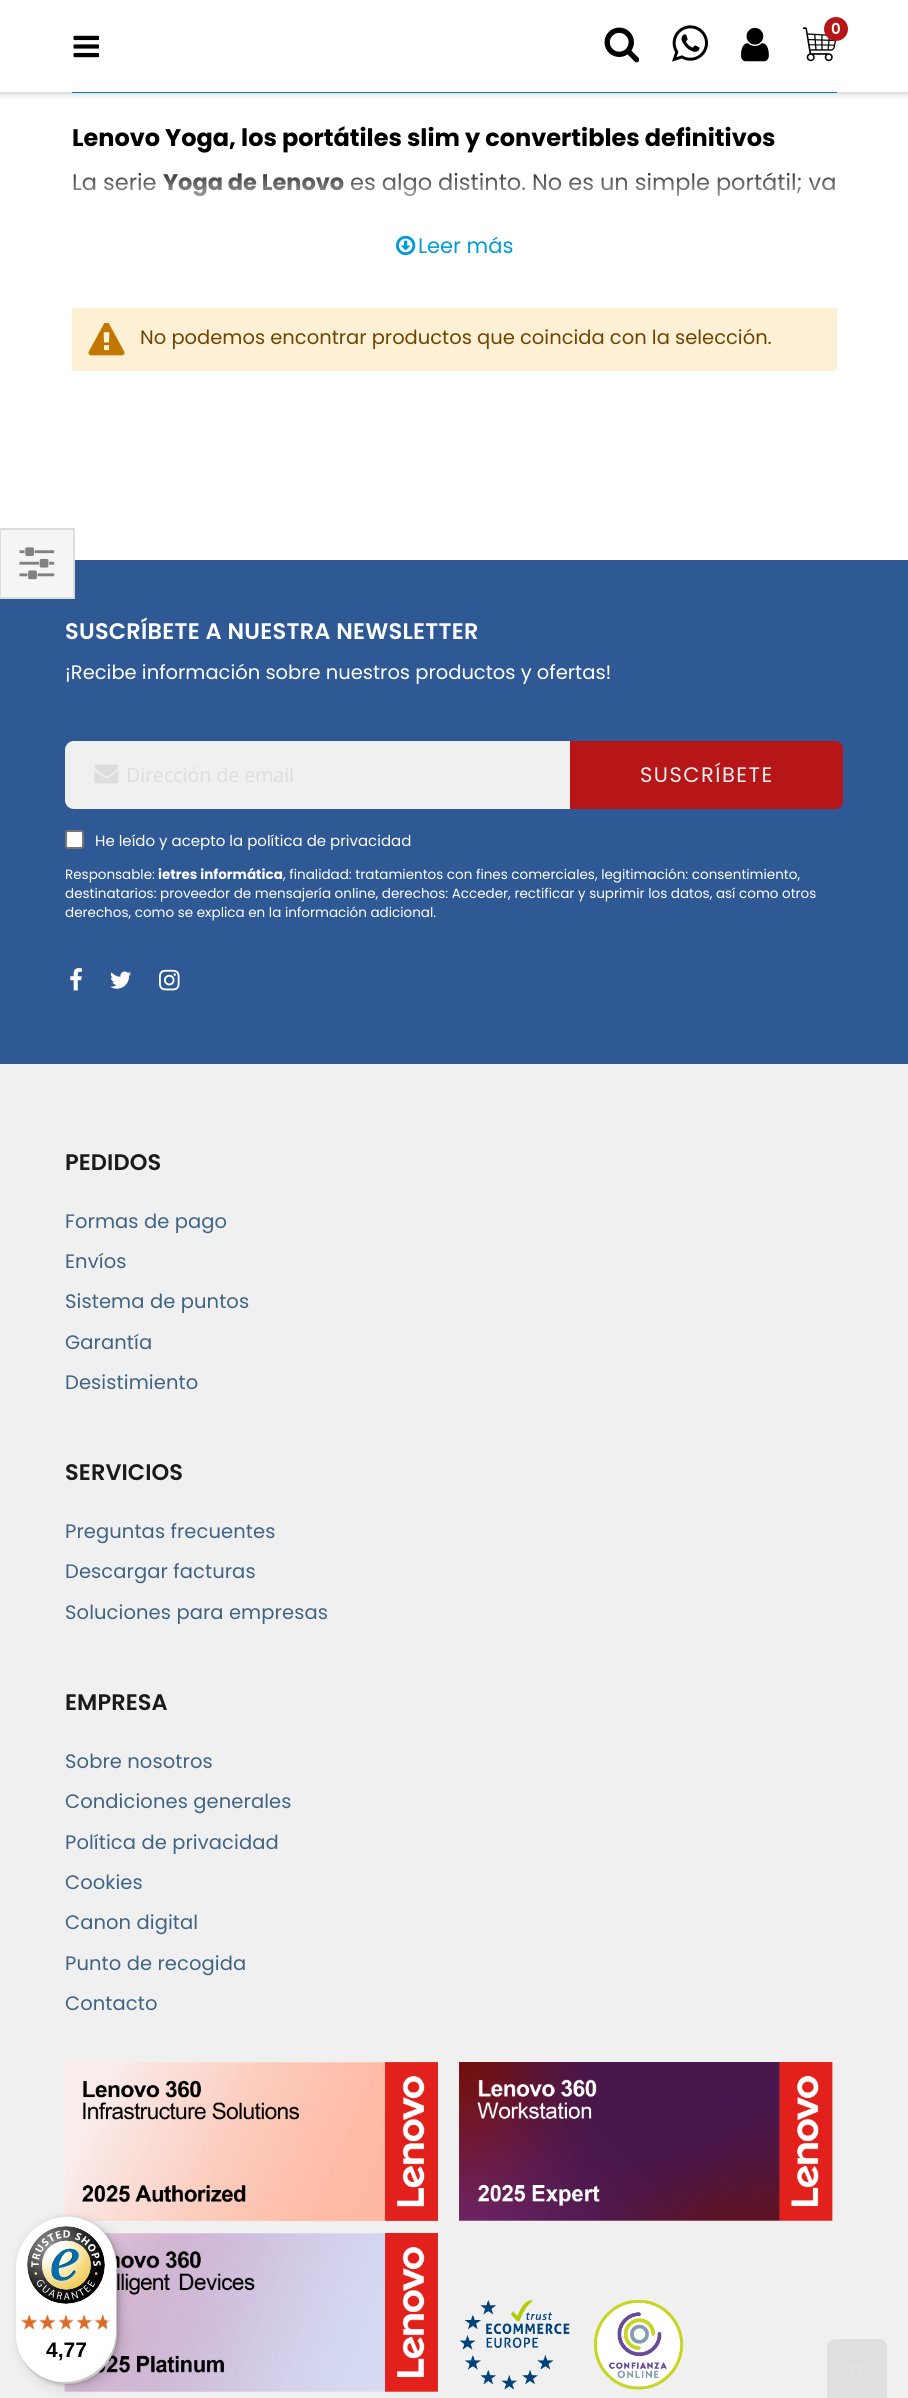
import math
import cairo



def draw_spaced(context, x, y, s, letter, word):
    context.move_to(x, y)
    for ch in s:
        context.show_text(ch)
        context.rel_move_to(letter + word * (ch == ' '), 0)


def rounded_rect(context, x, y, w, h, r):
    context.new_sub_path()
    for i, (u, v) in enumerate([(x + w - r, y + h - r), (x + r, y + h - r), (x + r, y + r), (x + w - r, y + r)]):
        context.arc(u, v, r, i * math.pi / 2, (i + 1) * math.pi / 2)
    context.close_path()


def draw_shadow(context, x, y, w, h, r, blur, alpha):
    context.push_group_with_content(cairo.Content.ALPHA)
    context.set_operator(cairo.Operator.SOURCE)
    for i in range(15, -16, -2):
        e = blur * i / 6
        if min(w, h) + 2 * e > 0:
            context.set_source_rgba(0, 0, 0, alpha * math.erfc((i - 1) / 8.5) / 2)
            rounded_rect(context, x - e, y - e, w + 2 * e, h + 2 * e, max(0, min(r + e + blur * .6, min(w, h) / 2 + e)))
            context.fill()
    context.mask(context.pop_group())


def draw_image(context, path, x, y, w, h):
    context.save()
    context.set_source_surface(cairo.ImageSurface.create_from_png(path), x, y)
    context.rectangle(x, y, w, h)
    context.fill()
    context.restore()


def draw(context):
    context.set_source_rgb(1, 1, 1)
    context.paint()
    context.set_source_rgb(0, 155 / 255, 219 / 255)
    context.rectangle(72, 92, 765, 1)
    context.fill()
    context.set_source_rgb(0, 0, 0)
    draw_shadow(context, 0, 0, 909, 92, 0, 4, 0.3)
    context.set_source_rgb(1, 1, 1)
    context.rectangle(0, 0, 908, 92)
    context.fill()
    draw_image(context, "images/1.png", 73, 35, 26, 23)
    draw_image(context, "images/2.png", 604, 27, 35, 36)
    draw_image(context, "images/3.png", 672, 25, 36, 37)
    draw_image(context, "images/4.png", 741, 27, 28, 35)
    draw_image(context, "images/5.png", 803, 27, 34, 35)
    context.set_source_rgb(182 / 255, 22 / 255, 24 / 255)
    context.arc(836, 29, 12, 0, 2 * math.pi)
    context.fill()
    draw_image(context, "images/6.png", 396, 235, 20, 21)
    context.set_source_rgb(253 / 255, 240 / 255, 213 / 255)
    context.rectangle(72, 308, 765, 63)
    context.fill()
    draw_image(context, "images/7.png", 88, 323, 37, 33)
    context.set_source_rgb(47 / 255, 89 / 255, 149 / 255)
    context.rectangle(0, 560, 908, 504)
    context.fill()
    context.set_source_rgb(245 / 255, 245 / 255, 245 / 255)
    context.rectangle(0, 529, 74, 69)
    context.fill_preserve()
    context.set_source_rgb(220 / 255, 220 / 255, 218 / 255)
    context.stroke()
    draw_image(context, "images/8.png", 19, 547, 36, 33)
    context.set_source_rgb(240 / 255, 240 / 255, 240 / 255)
    context.new_path()
    context.move_to(74, 742)
    context.line_to(571, 742)
    context.line_to(571, 808)
    context.line_to(74, 808)
    context.curve_to(69.5, 808, 66, 804.5, 66, 800)
    context.line_to(66, 750)
    context.curve_to(66, 745.5, 69.5, 742, 74, 742)
    context.close_path()
    context.fill_preserve()
    context.stroke()
    draw_image(context, "images/9.png", 94, 764, 25, 20)
    context.set_source_rgb(182 / 255, 22 / 255, 24 / 255)
    context.new_path()
    context.move_to(571, 742)
    context.line_to(835, 742)
    context.curve_to(839, 742, 842, 745, 842, 749)
    context.line_to(842, 801)
    context.curve_to(842, 805, 839, 808, 835, 808)
    context.line_to(571, 808)
    context.close_path()
    context.fill_preserve()
    context.stroke()
    context.set_source_rgb(1, 1, 1)
    rounded_rect(context, 66, 831, 17, 17, 2)
    context.fill_preserve()
    context.set_source_rgb(118 / 255, 118 / 255, 118 / 255)
    context.stroke()
    draw_image(context, "images/10.png", 70, 968, 12, 23)
    draw_image(context, "images/11.png", 110, 971, 21, 18)
    draw_image(context, "images/12.png", 159, 969, 21, 22)
    context.set_source_rgb(240 / 255, 240 / 255, 240 / 255)
    context.rectangle(0, 1064, 908, 1334)
    context.fill()
    draw_image(context, "images/13.png", 64, 2062, 374, 159)
    draw_image(context, "images/14.png", 459, 2062, 374, 159)
    draw_image(context, "images/15.png", 64, 2233, 374, 159)
    draw_image(context, "images/16.png", 459, 2300, 225, 90)
    context.set_source_rgb(223 / 255, 223 / 255, 223 / 255)
    context.new_path()
    context.move_to(835, 2339)
    context.line_to(879, 2339)
    context.curve_to(883.5, 2339, 887, 2342.5, 887, 2347)
    context.line_to(887, 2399)
    context.line_to(827, 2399)
    context.line_to(827, 2347)
    context.curve_to(827, 2342.5, 830.5, 2339, 835, 2339)
    context.close_path()
    context.fill()
    draw_image(context, "images/17.png", 850, 2364, 12, 7)
    context.set_source_rgb(0, 0, 0)
    draw_shadow(context, 20, 2220, 102, 168, 51, 6, 0.15)
    draw_shadow(context, 17, 2217, 102, 168, 51, 1.5, 0.15)
    context.set_source_rgb(1, 1, 1)
    rounded_rect(context, 15, 2216, 102, 168, 51)
    context.fill()
    context.set_source_rgba(0, 0, 0, 0.1)
    context.new_path()
    context.move_to(68, 2217)
    context.curve_to(78, 2217, 86, 2220, 94, 2224)
    context.curve_to(86, 2219, 76, 2216, 66, 2216)
    context.curve_to(38, 2216, 15, 2239, 15, 2267)
    context.line_to(15, 2333)
    context.curve_to(15, 2350, 23, 2365, 36, 2374)
    context.curve_to(24, 2365, 16, 2350, 16, 2334)
    context.line_to(16, 2268)
    context.curve_to(16, 2240, 39, 2217, 68, 2217)
    context.close_path()
    context.fill()
    context.set_source_rgba(0, 0, 0, 0.2)
    context.new_path()
    context.move_to(22, 2358)
    context.curve_to(30, 2374, 47, 2384, 66, 2384)
    context.curve_to(94, 2384, 117, 2361, 117, 2333)
    context.line_to(117, 2267)
    context.curve_to(117, 2258, 115, 2249, 110, 2242)
    context.curve_to(114, 2249, 116, 2257, 116, 2265)
    context.line_to(116, 2331)
    context.curve_to(116, 2359, 93, 2382, 64, 2382)
    context.curve_to(46, 2382, 30, 2372, 22, 2358)
    context.close_path()
    context.fill()
    context.set_source_rgba(50 / 255, 50 / 255, 50 / 255, 0.2)
    context.new_path()
    context.move_to(27, 2366)
    context.curve_to(37, 2377, 51, 2384, 66, 2384)
    context.curve_to(94, 2384, 117, 2361, 117, 2333)
    context.line_to(117, 2267)
    context.curve_to(117, 2255, 113, 2244, 106, 2235)
    context.curve_to(112, 2244, 116, 2254, 116, 2266)
    context.line_to(116, 2332)
    context.curve_to(116, 2360, 93, 2383, 65, 2383)
    context.curve_to(50, 2383, 37, 2377, 27, 2366)
    context.close_path()
    context.fill()
    context.set_source_rgba(1, 1, 1, 0.3)
    context.new_path()
    context.move_to(27, 2366)
    context.curve_to(37, 2377, 51, 2384, 66, 2384)
    context.curve_to(94, 2384, 117, 2361, 117, 2333)
    context.line_to(117, 2267)
    context.curve_to(117, 2252, 110, 2238, 99, 2228)
    context.curve_to(110, 2238, 116, 2251, 116, 2266)
    context.line_to(116, 2332)
    context.curve_to(116, 2360, 93, 2383, 65, 2383)
    context.curve_to(50, 2383, 37, 2377, 27, 2366)
    context.close_path()
    context.fill()
    draw_image(context, "images/18.png", 27, 2226, 78, 78)
    draw_image(context, "images/19.png", 21, 2314, 16, 16)
    draw_image(context, "images/20.png", 41, 2315, 14, 14)
    draw_image(context, "images/21.png", 59, 2315, 14, 15)
    draw_image(context, "images/22.png", 77, 2315, 16, 14)
    draw_image(context, "images/23.png", 95, 2314, 16, 16)
    draw_image(context, "images/24.png", 21, 2314, 16, 16)
    draw_image(context, "images/25.png", 39, 2314, 16, 16)
    draw_image(context, "images/26.png", 59, 2314, 14, 16)
    draw_image(context, "images/27.png", 77, 2314, 14, 16)
    draw_image(context, "images/28.png", 95, 2314, 12, 16)
    context.select_font_face("Poppins SemiBold")
    context.set_font_size(15)
    context.set_source_rgb(1, 1, 1)
    context.move_to(831, 34)
    context.show_text("0")
    context.select_font_face("Poppins", cairo.FontSlant.NORMAL, cairo.FontWeight.BOLD)
    context.set_font_size(24)
    gradient = cairo.LinearGradient(455, 217, 455, 10)
    gradient.add_color_stop_rgba(0, 1, 1, 1, 1)
    gradient.add_color_stop_rgba(0.27, 0, 0, 0, 1)
    context.set_source(gradient)
    context.move_to(72, 146)
    context.show_text("Lenovo Yoga, los portátiles slim y convertibles definitivos")
    context.select_font_face("Poppins")
    context.set_font_size(22.5)
    context.move_to(72, 190)
    context.show_text("La serie")
    context.select_font_face("Poppins", cairo.FontSlant.NORMAL, cairo.FontWeight.BOLD)
    context.move_to(163, 190)
    context.show_text("Yoga de Lenovo")
    context.select_font_face("Poppins")
    context.move_to(350, 190)
    context.show_text("es algo distinto. No es un simple portátil; va")
    context.set_font_size(21)
    context.set_source_rgb(0, 155 / 255, 219 / 255)
    context.move_to(418, 253)
    context.show_text("Leer más")
    context.set_font_size(19.5)
    context.set_source_rgb(111 / 255, 68 / 255, 0)
    context.move_to(140, 344)
    context.show_text("No podemos encontrar productos que coincida con la selección.")
    context.select_font_face("Poppins SemiBold")
    context.set_font_size(22.5)
    context.set_source_rgb(1, 1, 1)
    draw_spaced(context, 65, 639, "SUSCRÍBETE A NUESTRA NEWSLETTER", 0.25, 0)
    context.select_font_face("Poppins")
    context.set_font_size(19.5)
    context.move_to(65, 679)
    context.show_text("¡Recibe información sobre nuestros productos y ofertas!")
    context.select_font_face("Open Sans")
    context.set_source_rgb(221 / 255, 221 / 255, 221 / 255)
    context.move_to(126, 782)
    context.show_text("Dirección de email")
    context.select_font_face("Poppins")
    context.set_font_size(21)
    context.set_source_rgb(240 / 255, 240 / 255, 240 / 255)
    draw_spaced(context, 640, 782, "SUSCRÍBETE", 1.5, 0)
    context.set_font_size(15)
    context.set_source_rgb(1, 1, 1)
    context.move_to(95, 846)
    context.show_text("He leído y acepto la política de privacidad")
    context.set_font_size(13.5)
    context.move_to(65, 879)
    context.show_text("Responsable:")
    context.select_font_face("Poppins", cairo.FontSlant.NORMAL, cairo.FontWeight.BOLD)
    context.move_to(158, 879)
    context.show_text("ietres informática")
    context.select_font_face("Poppins")
    context.move_to(283, 879)
    context.show_text(", finalidad: tratamientos con fines comerciales, legitimación: consentimiento,")
    context.move_to(65, 898)
    context.show_text("destinatarios: proveedor de mensajería online, derechos: Acceder, rectificar y suprimir los datos, así como otros")
    context.move_to(65, 917)
    context.show_text("derechos, como se explica en la información adicional.")
    context.select_font_face("Poppins SemiBold")
    context.set_font_size(22.5)
    context.set_source_rgb(26 / 255, 26 / 255, 26 / 255)
    draw_spaced(context, 65, 1170, "PEDIDOS", 0.1, 0)
    context.select_font_face("Poppins")
    context.set_font_size(19.5)
    context.set_source_rgb(63 / 255, 100 / 255, 131 / 255)
    draw_spaced(context, 65, 1228, "Formas de pago", 0.1, 0)
    draw_spaced(context, 65, 1268, "Envíos", 0.1, 0)
    draw_spaced(context, 65, 1308, "Sistema de puntos", 0.1, 0)
    draw_spaced(context, 65, 1349, "Garantía", 0.1, 0)
    draw_spaced(context, 65, 1389, "Desistimiento", 0.1, 0)
    context.select_font_face("Poppins SemiBold")
    context.set_font_size(22.5)
    context.set_source_rgb(26 / 255, 26 / 255, 26 / 255)
    draw_spaced(context, 65, 1480, "SERVICIOS", 0.1, 0)
    context.select_font_face("Poppins")
    context.set_font_size(19.5)
    context.set_source_rgb(63 / 255, 100 / 255, 131 / 255)
    draw_spaced(context, 65, 1538, "Preguntas frecuentes", 0.1, 0)
    draw_spaced(context, 65, 1578, "Descargar facturas", 0.1, 0)
    draw_spaced(context, 65, 1619, "Soluciones para empresas", 0.1, 0)
    context.select_font_face("Poppins SemiBold")
    context.set_font_size(22.5)
    context.set_source_rgb(26 / 255, 26 / 255, 26 / 255)
    draw_spaced(context, 65, 1710, "EMPRESA", 0.1, 0)
    context.select_font_face("Poppins")
    context.set_font_size(19.5)
    context.set_source_rgb(63 / 255, 100 / 255, 131 / 255)
    draw_spaced(context, 65, 1768, "Sobre nosotros", 0.1, 0)
    draw_spaced(context, 65, 1808, "Condiciones generales", 0.1, 0)
    draw_spaced(context, 65, 1849, "Política de privacidad", 0.1, 0)
    draw_spaced(context, 65, 1889, "Cookies", 0.1, 0)
    draw_spaced(context, 65, 1929, "Canon digital", 0.1, 0)
    draw_spaced(context, 65, 1970, "Punto de recogida", 0.1, 0)
    draw_spaced(context, 65, 2010, "Contacto", 0.1, 0)
    context.select_font_face("Liberation Sans", cairo.FontSlant.NORMAL, cairo.FontWeight.BOLD)
    context.set_font_size(21)
    context.set_source_rgb(0, 0, 0)
    context.move_to(46, 2357)
    context.show_text("4,77")


surface = cairo.ImageSurface(cairo.Format.RGB24, 908, 2398)
context = cairo.Context(surface)
options = cairo.FontOptions()
options.set_hint_metrics(cairo.HintMetrics.OFF)
options.set_hint_style(cairo.HintStyle.NONE)
context.set_font_options(options)
context.set_miter_limit(4)
draw(context)
surface.write_to_png("out.png")
